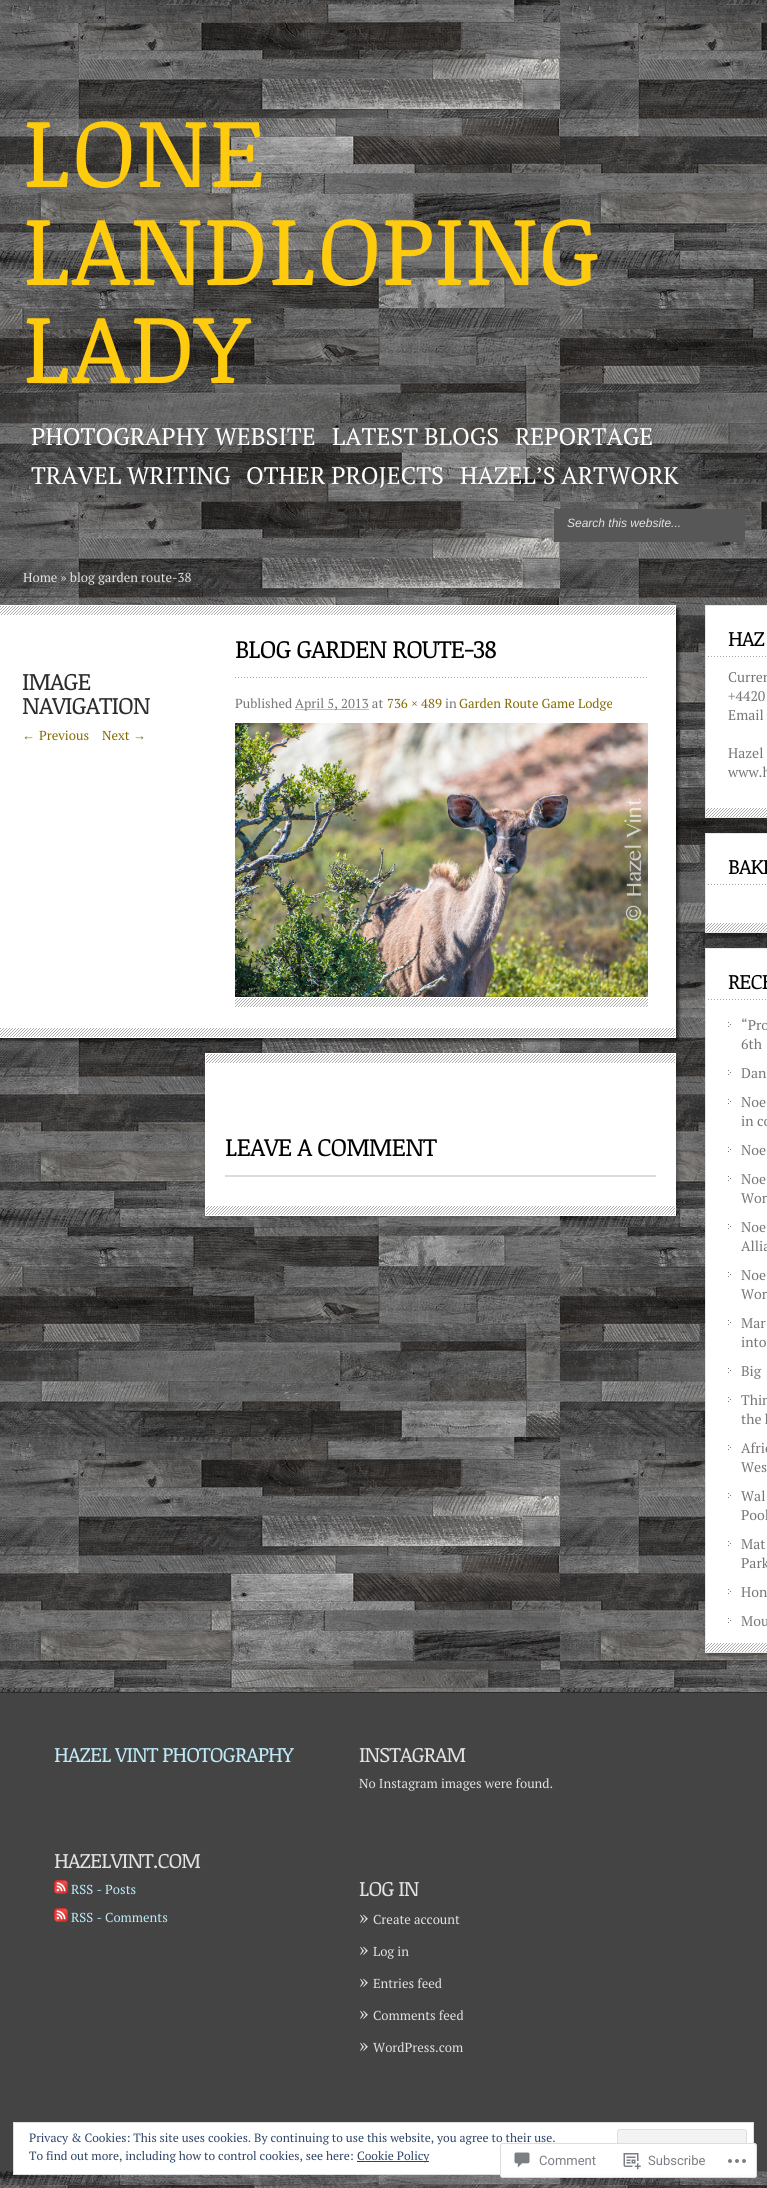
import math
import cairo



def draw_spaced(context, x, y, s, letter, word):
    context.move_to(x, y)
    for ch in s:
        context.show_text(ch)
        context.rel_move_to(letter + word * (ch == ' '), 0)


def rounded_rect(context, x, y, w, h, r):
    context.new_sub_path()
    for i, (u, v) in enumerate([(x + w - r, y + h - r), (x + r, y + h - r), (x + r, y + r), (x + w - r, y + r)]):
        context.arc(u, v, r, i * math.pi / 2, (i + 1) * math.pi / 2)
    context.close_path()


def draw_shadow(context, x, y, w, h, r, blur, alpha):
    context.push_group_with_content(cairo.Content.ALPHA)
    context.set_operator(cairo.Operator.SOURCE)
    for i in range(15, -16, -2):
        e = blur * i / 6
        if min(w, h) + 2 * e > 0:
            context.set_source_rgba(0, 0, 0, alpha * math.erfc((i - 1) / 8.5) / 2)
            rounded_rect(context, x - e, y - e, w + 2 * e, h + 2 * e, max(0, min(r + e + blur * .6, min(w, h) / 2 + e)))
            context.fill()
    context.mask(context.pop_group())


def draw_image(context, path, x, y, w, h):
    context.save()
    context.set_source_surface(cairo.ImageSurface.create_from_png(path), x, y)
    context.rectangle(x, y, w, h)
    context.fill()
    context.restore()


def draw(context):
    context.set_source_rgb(1, 1, 1)
    context.paint()
    draw_image(context, "images/1.png", 0, 0, 767, 2188)
    context.save()
    context.rectangle(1, 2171, 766, 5)
    context.clip()
    context.set_source_rgb(0, 0, 0)
    draw_shadow(context, 3, 3, 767, 2171, 0, 1.5, 0.2)
    context.restore()
    context.set_source_rgb(87 / 255, 87 / 255, 87 / 255)
    context.rectangle(554, 509, 191, 33)
    context.fill()
    context.set_source_rgb(0, 0, 0)
    draw_shadow(context, -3, 608, 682, 433, 0, 1.5, 0.6)
    context.set_source_rgb(1, 1, 1)
    context.rectangle(0, 606, 675, 431)
    context.fill()
    draw_image(context, "images/2.png", 0, 606, 675, 9)
    context.rectangle(-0.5, 605.5, 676, 432)
    context.set_line_width(1)
    context.stroke()
    draw_image(context, "images/2.png", 0, 1028, 675, 9)
    draw_image(context, "images/3.png", 235, 677, 412, 1)
    context.new_path()
    context.move_to(295.5, 709.5)
    context.line_to(369, 709.5)
    context.set_source_rgb(122 / 255, 117 / 255, 117 / 255)
    context.set_dash([1, 1])
    context.stroke()
    draw_image(context, "images/4.png", 235, 998, 413, 9)
    draw_image(context, "images/5.png", 235, 723, 413, 274)
    context.set_source_rgb(0, 0, 0)
    draw_shadow(context, 208, 1056, 471, 163, 0, 1.5, 0.2)
    context.set_source_rgb(1, 1, 1)
    context.rectangle(206, 1054, 469, 161)
    context.fill()
    draw_image(context, "images/6.png", 206, 1054, 469, 9)
    context.rectangle(205.5, 1053.5, 470, 162)
    context.set_dash([])
    context.stroke()
    draw_image(context, "images/6.png", 206, 1206, 469, 9)
    context.set_source_rgb(220 / 255, 220 / 255, 222 / 255)
    context.rectangle(225, 1175, 431, 2)
    context.fill()
    context.set_source_rgb(0, 0, 0)
    draw_shadow(context, 708, 608, 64, 213, 0, 1.5, 0.2)
    context.set_source_rgb(1, 1, 1)
    context.rectangle(706, 606, 61, 211)
    context.fill()
    draw_image(context, "images/7.png", 706, 808, 61, 9)
    context.rectangle(705.5, 605.5, 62, 212)
    context.set_source_rgb(231 / 255, 231 / 255, 231 / 255)
    context.stroke()
    draw_image(context, "images/8.png", 708, 656, 58, 1)
    context.set_source_rgb(0, 0, 0)
    draw_shadow(context, 708, 836, 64, 100, 0, 1.5, 0.2)
    context.set_source_rgb(1, 1, 1)
    context.rectangle(706, 834, 61, 98)
    context.fill()
    draw_image(context, "images/7.png", 706, 923, 61, 9)
    context.rectangle(705.5, 833.5, 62, 99)
    context.set_source_rgb(231 / 255, 231 / 255, 231 / 255)
    context.stroke()
    draw_image(context, "images/8.png", 708, 884, 58, 1)
    context.set_source_rgb(0, 0, 0)
    draw_shadow(context, 708, 951, 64, 705, 0, 1.5, 0.2)
    context.set_source_rgb(1, 1, 1)
    context.rectangle(706, 949, 61, 703)
    context.fill()
    draw_image(context, "images/7.png", 706, 1643, 61, 9)
    context.rectangle(705.5, 948.5, 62, 704)
    context.set_source_rgb(231 / 255, 231 / 255, 231 / 255)
    context.stroke()
    draw_image(context, "images/8.png", 708, 999, 58, 1)
    draw_image(context, "images/9.png", 728, 1022, 3, 5)
    draw_image(context, "images/9.png", 728, 1070, 3, 5)
    draw_image(context, "images/9.png", 728, 1099, 3, 5)
    draw_image(context, "images/9.png", 728, 1147, 3, 5)
    draw_image(context, "images/9.png", 728, 1176, 3, 5)
    draw_image(context, "images/9.png", 728, 1224, 3, 5)
    draw_image(context, "images/9.png", 728, 1272, 3, 5)
    draw_image(context, "images/9.png", 728, 1320, 3, 5)
    draw_image(context, "images/9.png", 728, 1368, 3, 5)
    draw_image(context, "images/9.png", 728, 1397, 3, 5)
    draw_image(context, "images/9.png", 728, 1445, 3, 5)
    draw_image(context, "images/9.png", 728, 1493, 3, 5)
    draw_image(context, "images/9.png", 728, 1541, 3, 5)
    draw_image(context, "images/9.png", 728, 1589, 3, 5)
    draw_image(context, "images/9.png", 728, 1618, 3, 5)
    context.set_source_rgb(43 / 255, 43 / 255, 43 / 255)
    context.rectangle(0, 1692, 767, 1)
    context.fill()
    context.set_source_rgb(68 / 255, 68 / 255, 68 / 255)
    context.rectangle(0, 1693, 767, 478)
    context.fill()
    draw_image(context, "images/10.png", 54, 1880, 14, 14)
    draw_image(context, "images/10.png", 54, 1908, 14, 14)
    context.set_source_rgb(1, 1, 1)
    context.rectangle(13.5, 2122.5, 740, 52)
    context.fill_preserve()
    context.set_source_rgb(222 / 255, 222 / 255, 222 / 255)
    context.stroke()
    context.set_source_rgb(243 / 255, 243 / 255, 243 / 255)
    rounded_rect(context, 617.5, 2129.5, 129, 38, 2.5)
    context.fill_preserve()
    context.set_source_rgb(222 / 255, 222 / 255, 222 / 255)
    context.stroke()
    context.set_source_rgb(46 / 255, 68 / 255, 103 / 255)
    context.rectangle(357, 2161, 72, 1)
    context.fill()
    context.select_font_face("Noticia Text")
    context.set_font_size(98)
    context.set_source_rgb(1, 203 / 255, 15 / 255)
    context.move_to(23, 187)
    context.show_text("LONE")
    context.move_to(23, 285)
    context.show_text("LANDLOPING")
    context.move_to(23, 383)
    context.show_text("LADY")
    context.select_font_face("PT Serif")
    context.set_font_size(24)
    context.set_source_rgb(1, 1, 1)
    context.move_to(31, 445)
    context.show_text("PHOTOGRAPHY WEBSITE")
    context.move_to(332, 445)
    context.show_text("LATEST BLOGS")
    context.move_to(515, 445)
    context.show_text("REPORTAGE")
    context.move_to(31, 484)
    context.show_text("TRAVEL WRITING")
    context.move_to(246, 484)
    context.show_text("OTHER PROJECTS")
    context.move_to(460, 484)
    context.show_text("HAZEL’S ARTWORK")
    context.select_font_face("Liberation Sans", cairo.FontSlant.ITALIC)
    context.set_font_size(12)
    context.set_source_rgb(226 / 255, 226 / 255, 226 / 255)
    context.move_to(567, 527)
    context.show_text("Search this website...")
    context.select_font_face("PT Serif")
    context.set_font_size(13)
    context.move_to(23, 582)
    context.show_text("Home » blog garden route-38")
    context.select_font_face("Noticia Text")
    context.set_font_size(24)
    context.set_source_rgb(44 / 255, 44 / 255, 44 / 255)
    draw_spaced(context, 22, 690, "IMAGE", -1, 0)
    draw_spaced(context, 22, 714, "NAVIGATION", -1, 0)
    context.select_font_face("Liberation Serif")
    context.set_font_size(13)
    context.set_source_rgb(132 / 255, 106 / 255, 0)
    context.move_to(22, 740)
    context.show_text("←")
    context.select_font_face("PT Serif")
    context.move_to(39, 740)
    context.show_text("Previous")
    context.move_to(102, 740)
    context.show_text("Next")
    context.select_font_face("Liberation Serif")
    context.move_to(133, 740)
    context.show_text("→")
    context.select_font_face("Noticia Text")
    context.set_font_size(25.25)
    context.set_source_rgb(0, 0, 0)
    draw_spaced(context, 235, 658, "BLOG GARDEN ROUTE-38", -1, 0)
    context.select_font_face("PT Serif")
    context.set_font_size(13)
    context.set_source_rgb(122 / 255, 117 / 255, 117 / 255)
    context.move_to(235, 708)
    context.show_text("Published")
    context.move_to(295, 708)
    context.show_text("April 5, 2013 at")
    context.set_source_rgb(132 / 255, 106 / 255, 0)
    context.move_to(387, 708)
    context.show_text("736 × 489")
    context.set_source_rgb(122 / 255, 117 / 255, 117 / 255)
    context.move_to(445, 708)
    context.show_text("in")
    context.set_source_rgb(132 / 255, 106 / 255, 0)
    context.move_to(459, 708)
    context.show_text("Garden Route Game Lodge")
    context.select_font_face("Noticia Text")
    context.set_font_size(25.25)
    context.set_source_rgb(0, 0, 0)
    draw_spaced(context, 225, 1156, "LEAVE A COMMENT", -1, 0)
    context.set_font_size(21)
    draw_spaced(context, 728, 646, "HAZ", -1, 0)
    context.select_font_face("PT Serif")
    context.set_font_size(14)
    context.set_source_rgb(122 / 255, 117 / 255, 117 / 255)
    context.move_to(728, 682)
    context.show_text("Curren")
    context.move_to(728, 701)
    context.show_text("+4420")
    context.move_to(728, 720)
    context.show_text("Email")
    context.move_to(728, 758)
    context.show_text("Hazel")
    context.move_to(728, 777)
    context.show_text("www.h")
    context.select_font_face("Noticia Text")
    context.set_font_size(21)
    context.set_source_rgb(0, 0, 0)
    draw_spaced(context, 728, 874, "BAKE", -1, 0)
    draw_spaced(context, 728, 989, "RECE", -1, 0)
    context.select_font_face("PT Serif")
    context.set_font_size(14)
    context.set_source_rgb(122 / 255, 117 / 255, 117 / 255)
    context.move_to(741, 1030)
    context.show_text("“Pro")
    context.move_to(741, 1049)
    context.show_text("6th")
    context.move_to(741, 1078)
    context.show_text("Dan")
    context.move_to(741, 1107)
    context.show_text("Noe")
    context.move_to(741, 1126)
    context.show_text("in co")
    context.move_to(741, 1155)
    context.show_text("Noe")
    context.move_to(741, 1184)
    context.show_text("Noe")
    context.move_to(741, 1203)
    context.show_text("Wor")
    context.move_to(741, 1232)
    context.show_text("Noe")
    context.move_to(741, 1251)
    context.show_text("Allia")
    context.move_to(741, 1280)
    context.show_text("Noe")
    context.move_to(741, 1299)
    context.show_text("Wor")
    context.move_to(741, 1328)
    context.show_text("Mar")
    context.move_to(741, 1347)
    context.show_text("into")
    context.move_to(741, 1376)
    context.show_text("Big")
    context.move_to(741, 1405)
    context.show_text("Thin")
    context.move_to(741, 1424)
    context.show_text("the h")
    context.move_to(741, 1453)
    context.show_text("Afric")
    context.move_to(741, 1472)
    context.show_text("Wes")
    context.move_to(741, 1501)
    context.show_text("Wal")
    context.move_to(741, 1520)
    context.show_text("Pool")
    context.move_to(741, 1549)
    context.show_text("Mat")
    context.move_to(741, 1568)
    context.show_text("Park")
    context.move_to(741, 1597)
    context.show_text("Hon")
    context.move_to(741, 1626)
    context.show_text("Mou")
    context.select_font_face("Noticia Text")
    context.set_font_size(21)
    context.set_source_rgb(189 / 255, 234 / 255, 249 / 255)
    draw_spaced(context, 54, 1762, "HAZEL VINT PHOTOGRAPHY", -1, 0)
    context.set_source_rgb(226 / 255, 226 / 255, 226 / 255)
    draw_spaced(context, 359, 1762, "INSTAGRAM", -1, 0)
    context.select_font_face("PT Serif")
    context.set_font_size(13)
    context.move_to(359, 1788)
    context.show_text("No Instagram images were found.")
    context.select_font_face("Noticia Text")
    context.set_font_size(21)
    draw_spaced(context, 54, 1868, "HAZELVINT.COM", -1, 0)
    context.select_font_face("PT Serif")
    context.set_font_size(13)
    context.set_source_rgb(189 / 255, 234 / 255, 249 / 255)
    context.move_to(71, 1894)
    context.show_text("RSS - Posts")
    context.move_to(71, 1922)
    context.show_text("RSS - Comments")
    context.select_font_face("Noticia Text")
    context.set_font_size(21)
    context.set_source_rgb(226 / 255, 226 / 255, 226 / 255)
    draw_spaced(context, 359, 1896, "LOG IN", -1, 0)
    context.select_font_face("PT Serif")
    context.set_font_size(20)
    context.move_to(359, 1924)
    context.show_text("»")
    context.set_font_size(13)
    context.move_to(373, 1924)
    context.show_text("Create account")
    context.set_font_size(20)
    context.move_to(359, 1956)
    context.show_text("»")
    context.set_font_size(13)
    context.move_to(373, 1956)
    context.show_text("Log in")
    context.set_font_size(20)
    context.move_to(359, 1988)
    context.show_text("»")
    context.set_font_size(13)
    context.move_to(373, 1988)
    context.show_text("Entries feed")
    context.set_font_size(20)
    context.move_to(359, 2020)
    context.show_text("»")
    context.set_font_size(13)
    context.move_to(373, 2020)
    context.show_text("Comments feed")
    context.set_font_size(20)
    context.move_to(359, 2052)
    context.show_text("»")
    context.set_font_size(13)
    context.move_to(373, 2052)
    context.show_text("WordPress.com")
    context.set_font_size(12)
    context.set_source_rgb(46 / 255, 68 / 255, 103 / 255)
    context.move_to(29, 2142)
    context.show_text("Privacy & Cookies: This site uses cookies. By continuing to use this website, you agree to their use.")
    context.move_to(29, 2160)
    context.show_text("To find out more, including how to control cookies, see here:")
    context.move_to(357, 2160)
    context.show_text("Cookie Policy")
    context.set_source_rgba(1, 1, 1, 0.98)
    rounded_rect(context, 500, 2143, 257, 35, 3)
    context.fill()
    rounded_rect(context, 500.5, 2143.5, 256, 34, 2.5)
    context.set_source_rgba(220 / 255, 220 / 255, 222 / 255, 0.98)
    context.stroke()
    draw_image(context, "images/11.png", 514, 2152, 16, 16)
    context.select_font_face("Roboto")
    context.set_font_size(13)
    context.set_source_rgb(123 / 255, 127 / 255, 133 / 255)
    context.move_to(539, 2165)
    context.show_text("Comment")
    draw_image(context, "images/12.png", 623, 2153, 18, 17)
    context.move_to(648, 2165)
    context.show_text("Subscribe")
    draw_image(context, "images/13.png", 728, 2159, 18, 4)


surface = cairo.ImageSurface(cairo.Format.RGB24, 767, 2188)
context = cairo.Context(surface)
options = cairo.FontOptions()
options.set_hint_metrics(cairo.HintMetrics.OFF)
options.set_hint_style(cairo.HintStyle.NONE)
context.set_font_options(options)
context.set_miter_limit(4)
draw(context)
surface.write_to_png("out.png")
